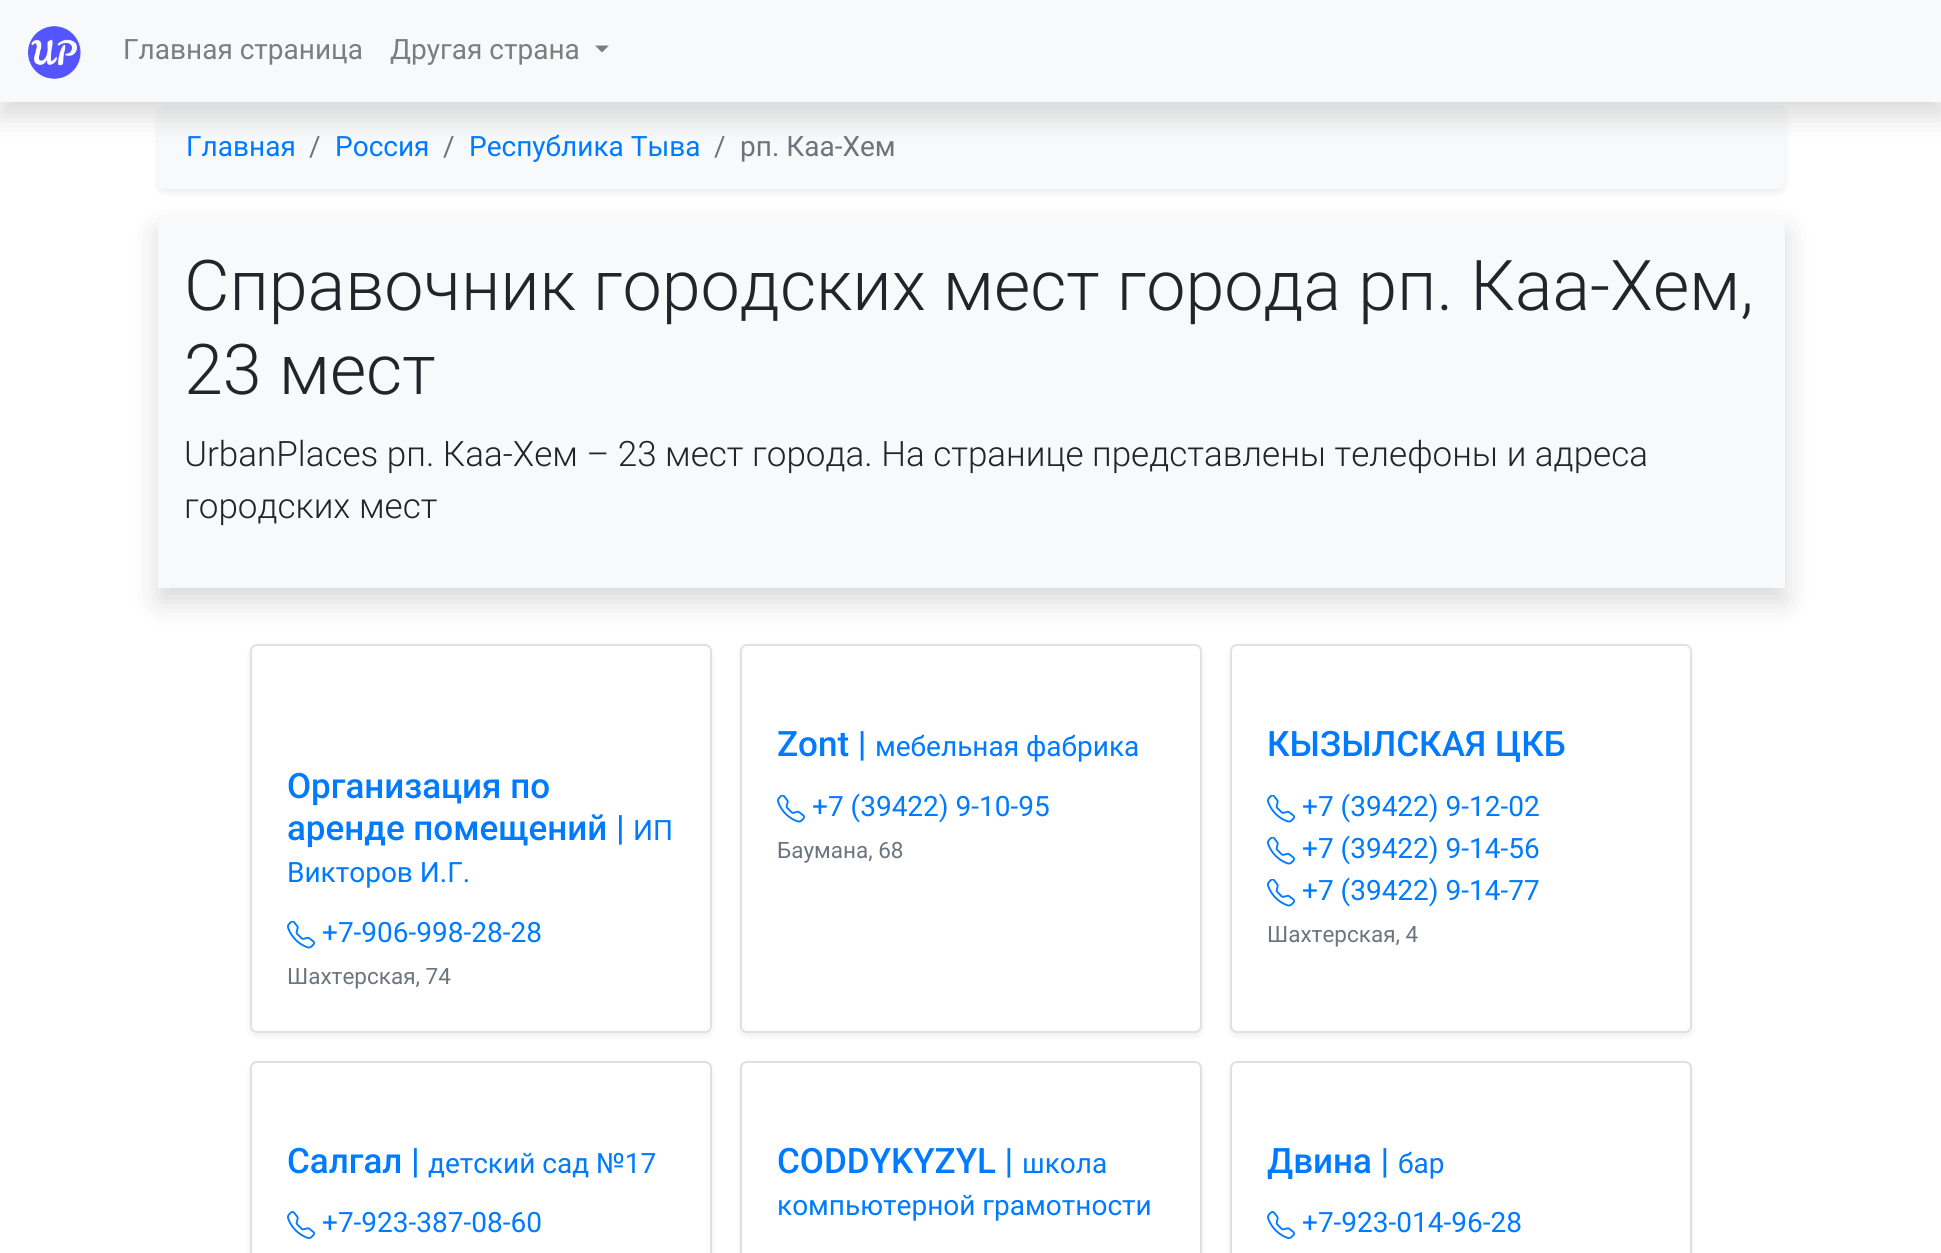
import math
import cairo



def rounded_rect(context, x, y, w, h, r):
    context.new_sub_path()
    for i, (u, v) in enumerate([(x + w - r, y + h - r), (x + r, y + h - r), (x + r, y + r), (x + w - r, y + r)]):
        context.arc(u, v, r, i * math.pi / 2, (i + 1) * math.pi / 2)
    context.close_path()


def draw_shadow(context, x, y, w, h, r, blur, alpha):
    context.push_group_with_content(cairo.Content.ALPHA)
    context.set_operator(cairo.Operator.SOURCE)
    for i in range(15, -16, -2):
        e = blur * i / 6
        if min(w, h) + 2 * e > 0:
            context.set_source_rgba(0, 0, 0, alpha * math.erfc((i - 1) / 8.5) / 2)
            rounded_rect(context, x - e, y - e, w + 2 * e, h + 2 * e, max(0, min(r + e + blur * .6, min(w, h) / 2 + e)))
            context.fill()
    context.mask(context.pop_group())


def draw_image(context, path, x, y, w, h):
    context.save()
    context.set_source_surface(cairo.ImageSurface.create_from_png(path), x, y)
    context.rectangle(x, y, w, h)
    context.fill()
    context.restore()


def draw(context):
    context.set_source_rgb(1, 1, 1)
    context.paint()
    context.set_source_rgb(0, 0, 0)
    draw_shadow(context, 158, 109, 1627, 84, 7, 3.5, 0.07)
    context.set_source_rgb(248 / 255, 249 / 255, 250 / 255)
    rounded_rect(context, 158, 105, 1627, 84, 7)
    context.fill()
    context.set_source_rgb(0, 0, 0)
    draw_shadow(context, 0, 14, 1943, 102, 0, 14, 0.15)
    context.set_source_rgb(248 / 255, 249 / 255, 250 / 255)
    context.rectangle(0, 0, 1941, 102)
    context.fill()
    draw_image(context, "images/1.png", 28, 26, 53, 53)
    context.set_source_rgb(124 / 255, 125 / 255, 125 / 255)
    context.new_path()
    context.move_to(595, 45.5)
    context.line_to(609, 45.5)
    context.line_to(602, 52.5)
    context.close_path()
    context.fill()
    context.set_source_rgb(0, 0, 0)
    draw_shadow(context, 158, 231, 1627, 371, 0, 14, 0.15)
    context.set_source_rgb(248 / 255, 249 / 255, 250 / 255)
    context.rectangle(158, 217, 1627, 371)
    context.fill()
    context.set_source_rgb(0, 0, 0)
    draw_shadow(context, 250, 648, 462, 388, 7, 3.5, 0.07)
    context.set_source_rgb(1, 1, 1)
    rounded_rect(context, 250, 644, 462, 389, 7)
    context.fill()
    rounded_rect(context, 251, 645, 460, 387, 6)
    context.set_source_rgba(0, 0, 0, 0.12)
    context.stroke()
    draw_image(context, "images/2.png", 287, 921, 28, 28)
    context.set_source_rgb(0, 0, 0)
    draw_shadow(context, 740, 648, 462, 388, 7, 3.5, 0.07)
    context.set_source_rgb(1, 1, 1)
    rounded_rect(context, 740, 644, 462, 389, 7)
    context.fill()
    rounded_rect(context, 741, 645, 460, 387, 6)
    context.set_source_rgba(0, 0, 0, 0.12)
    context.stroke()
    draw_image(context, "images/2.png", 777, 795, 28, 28)
    context.set_source_rgb(0, 0, 0)
    draw_shadow(context, 1230, 648, 462, 388, 7, 3.5, 0.07)
    context.set_source_rgb(1, 1, 1)
    rounded_rect(context, 1230, 644, 462, 389, 7)
    context.fill()
    rounded_rect(context, 1231, 645, 460, 387, 6)
    context.set_source_rgba(0, 0, 0, 0.12)
    context.stroke()
    draw_image(context, "images/2.png", 1267, 795, 28, 28)
    draw_image(context, "images/2.png", 1267, 837, 28, 28)
    draw_image(context, "images/2.png", 1267, 879, 28, 28)
    context.set_source_rgb(0, 0, 0)
    draw_shadow(context, 250, 1064, 462, 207, 7, 3.5, 0.07)
    context.set_source_rgb(1, 1, 1)
    rounded_rect(context, 251, 1062, 460, 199, 6)
    context.fill_preserve()
    context.set_source_rgb(223 / 255, 223 / 255, 223 / 255)
    context.stroke()
    draw_image(context, "images/3.png", 287, 1211, 28, 28)
    context.set_source_rgb(0, 0, 0)
    draw_shadow(context, 740, 1064, 462, 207, 7, 3.5, 0.07)
    context.set_source_rgb(1, 1, 1)
    rounded_rect(context, 741, 1062, 460, 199, 6)
    context.fill_preserve()
    context.set_source_rgb(223 / 255, 223 / 255, 223 / 255)
    context.stroke()
    context.set_source_rgb(0, 0, 0)
    draw_shadow(context, 1230, 1064, 462, 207, 7, 3.5, 0.07)
    context.set_source_rgb(1, 1, 1)
    rounded_rect(context, 1231, 1062, 460, 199, 6)
    context.fill_preserve()
    context.set_source_rgb(223 / 255, 223 / 255, 223 / 255)
    context.stroke()
    draw_image(context, "images/3.png", 1267, 1211, 28, 28)
    context.select_font_face("Roboto")
    context.set_font_size(28)
    context.set_source_rgb(124 / 255, 125 / 255, 125 / 255)
    context.move_to(123, 59)
    context.show_text("Главная страница")
    context.move_to(390, 59)
    context.show_text("Другая страна")
    context.set_source_rgb(0, 123 / 255, 1)
    context.move_to(186, 156)
    context.show_text("Главная")
    context.set_source_rgb(108 / 255, 117 / 255, 125 / 255)
    context.move_to(309, 156)
    context.show_text("/")
    context.set_source_rgb(0, 123 / 255, 1)
    context.move_to(335, 156)
    context.show_text("Россия")
    context.set_source_rgb(108 / 255, 117 / 255, 125 / 255)
    context.move_to(443, 156)
    context.show_text("/")
    context.set_source_rgb(0, 123 / 255, 1)
    context.move_to(469, 156)
    context.show_text("Республика Тыва")
    context.set_source_rgb(108 / 255, 117 / 255, 125 / 255)
    context.move_to(714, 156)
    context.show_text("/")
    context.move_to(740, 156)
    context.show_text("рп. Каа-Хем")
    context.select_font_face("Roboto Light")
    context.set_font_size(70)
    context.set_source_rgb(33 / 255, 37 / 255, 41 / 255)
    context.move_to(184, 310)
    context.show_text("Справочник городских мест города рп. Каа-Хем,")
    context.move_to(184, 394)
    context.show_text("23 мест")
    context.set_font_size(35)
    context.move_to(184, 466)
    context.show_text("UrbanPlaces рп. Каа-Хем – 23 мест города. На странице представлены телефоны и адреса")
    context.move_to(184, 518)
    context.show_text("городских мест")
    context.select_font_face("Roboto Medium")
    context.set_source_rgb(0, 123 / 255, 1)
    context.move_to(287, 798)
    context.show_text("Организация по")
    context.move_to(287, 840)
    context.show_text("аренде помещений |")
    context.select_font_face("Roboto")
    context.set_font_size(28)
    context.move_to(633, 840)
    context.show_text("ИП")
    context.move_to(287, 882)
    context.show_text("Викторов И.Г.")
    context.move_to(322, 942)
    context.show_text("+7-906-998-28-28")
    context.set_font_size(22.5)
    context.set_source_rgb(108 / 255, 117 / 255, 125 / 255)
    context.move_to(287, 984)
    context.show_text("Шахтерская, 74")
    context.select_font_face("Roboto Medium")
    context.set_font_size(35)
    context.set_source_rgb(0, 123 / 255, 1)
    context.move_to(777, 756)
    context.show_text("Zont |")
    context.select_font_face("Roboto")
    context.set_font_size(28)
    context.move_to(875, 756)
    context.show_text("мебельная фабрика")
    context.move_to(812, 816)
    context.show_text("+7 (39422) 9-10-95")
    context.set_font_size(22.5)
    context.set_source_rgb(108 / 255, 117 / 255, 125 / 255)
    context.move_to(777, 858)
    context.show_text("Баумана, 68")
    context.select_font_face("Roboto Medium")
    context.set_font_size(35)
    context.set_source_rgb(0, 123 / 255, 1)
    context.move_to(1267, 756)
    context.show_text("КЫЗЫЛСКАЯ ЦКБ")
    context.select_font_face("Roboto")
    context.set_font_size(28)
    context.move_to(1302, 816)
    context.show_text("+7 (39422) 9-12-02")
    context.move_to(1302, 858)
    context.show_text("+7 (39422) 9-14-56")
    context.move_to(1302, 900)
    context.show_text("+7 (39422) 9-14-77")
    context.set_font_size(22.5)
    context.set_source_rgb(108 / 255, 117 / 255, 125 / 255)
    context.move_to(1267, 942)
    context.show_text("Шахтерская, 4")
    context.select_font_face("Roboto Medium")
    context.set_font_size(35)
    context.set_source_rgb(0, 123 / 255, 1)
    context.move_to(287, 1173)
    context.show_text("Салгал |")
    context.select_font_face("Roboto")
    context.set_font_size(28)
    context.move_to(428, 1173)
    context.show_text("детский сад №17")
    context.move_to(322, 1232)
    context.show_text("+7-923-387-08-60")
    context.select_font_face("Roboto Medium")
    context.set_font_size(35)
    context.move_to(777, 1173)
    context.show_text("CODDYKYZYL |")
    context.select_font_face("Roboto")
    context.set_font_size(28)
    context.move_to(1022, 1173)
    context.show_text("школа")
    context.move_to(777, 1215)
    context.show_text("компьютерной грамотности")
    context.select_font_face("Roboto Medium")
    context.set_font_size(35)
    context.move_to(1267, 1173)
    context.show_text("Двина |")
    context.select_font_face("Roboto")
    context.set_font_size(28)
    context.move_to(1398, 1173)
    context.show_text("бар")
    context.move_to(1302, 1232)
    context.show_text("+7-923-014-96-28")


surface = cairo.ImageSurface(cairo.Format.RGB24, 1941, 1253)
context = cairo.Context(surface)
options = cairo.FontOptions()
options.set_hint_metrics(cairo.HintMetrics.OFF)
options.set_hint_style(cairo.HintStyle.NONE)
context.set_font_options(options)
context.set_miter_limit(4)
draw(context)
surface.write_to_png("out.png")
